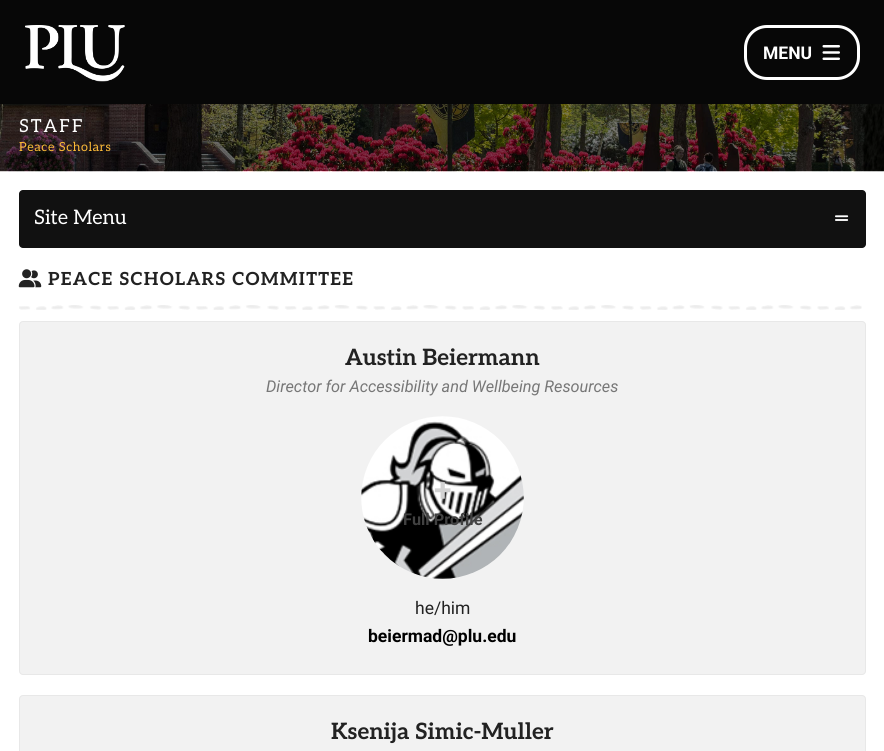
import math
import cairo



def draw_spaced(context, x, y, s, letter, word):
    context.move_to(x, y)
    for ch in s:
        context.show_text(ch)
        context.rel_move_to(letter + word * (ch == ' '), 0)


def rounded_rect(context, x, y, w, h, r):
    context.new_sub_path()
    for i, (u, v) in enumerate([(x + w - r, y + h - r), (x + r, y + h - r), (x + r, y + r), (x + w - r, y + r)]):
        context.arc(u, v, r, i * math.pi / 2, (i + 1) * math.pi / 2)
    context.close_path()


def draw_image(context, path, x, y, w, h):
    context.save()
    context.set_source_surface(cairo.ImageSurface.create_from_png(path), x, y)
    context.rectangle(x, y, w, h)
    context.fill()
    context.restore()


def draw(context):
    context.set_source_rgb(1, 1, 1)
    context.paint()
    context.set_source_rgb(7 / 255, 7 / 255, 7 / 255)
    context.rectangle(0, 0, 884, 104)
    context.fill()
    draw_image(context, "images/1.png", 25, 25, 100, 57)
    rounded_rect(context, 745.5, 26.5, 113, 52, 21.5)
    context.set_source_rgb(1, 1, 1)
    context.set_line_width(3)
    context.stroke()
    draw_image(context, "images/2.png", 822, 45, 18, 15)
    draw_image(context, "images/3.png", 0, 104, 884, 68)
    context.set_source_rgb(17 / 255, 17 / 255, 17 / 255)
    rounded_rect(context, 19, 190, 847, 58, 4)
    context.fill()
    draw_image(context, "images/4.png", 835, 215, 14, 6)
    draw_image(context, "images/5.png", 18, 269, 24, 19)
    draw_image(context, "images/6.png", 19, 305, 843, 5)
    context.set_source_rgb(242 / 255, 242 / 255, 242 / 255)
    rounded_rect(context, 19.5, 321.5, 846, 353, 3.5)
    context.fill_preserve()
    context.set_source_rgb(232 / 255, 232 / 255, 232 / 255)
    context.set_line_width(1)
    context.stroke()
    draw_image(context, "images/7.png", 361, 416, 163, 163)
    context.set_source_rgb(242 / 255, 242 / 255, 242 / 255)
    rounded_rect(context, 19.5, 695.5, 846, 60, 3.5)
    context.fill_preserve()
    context.set_source_rgb(232 / 255, 232 / 255, 232 / 255)
    context.stroke()
    context.select_font_face("Roboto", cairo.FontSlant.NORMAL, cairo.FontWeight.BOLD)
    context.set_font_size(17.5)
    context.set_source_rgb(1, 1, 1)
    context.move_to(763, 59)
    context.show_text("MENU")
    context.select_font_face("Aleo")
    context.set_font_size(18)
    draw_spaced(context, 19, 132, "STAFF", 2, 0)
    context.set_font_size(12.5)
    context.set_source_rgb(251 / 255, 186 / 255, 55 / 255)
    draw_spaced(context, 19, 151, "Peace Scholars", 0.6, 0)
    context.set_font_size(20)
    context.set_source_rgb(1, 1, 1)
    context.move_to(34, 224)
    context.show_text("Site Menu")
    context.select_font_face("Aleo", cairo.FontSlant.NORMAL, cairo.FontWeight.BOLD)
    context.set_font_size(18)
    context.set_source_rgb(34 / 255, 34 / 255, 34 / 255)
    draw_spaced(context, 48, 285, "PEACE SCHOLARS COMMITTEE", 1.25, 0)
    context.set_font_size(22.5)
    context.move_to(345, 365)
    context.show_text("Austin Beiermann")
    context.select_font_face("Roboto", cairo.FontSlant.ITALIC)
    context.set_font_size(16.25)
    context.set_source_rgb(119 / 255, 119 / 255, 119 / 255)
    context.move_to(266, 392)
    context.show_text("Director for Accessibility and Wellbeing Resources")
    context.select_font_face("Roboto", cairo.FontSlant.NORMAL, cairo.FontWeight.BOLD)
    context.set_font_size(32)
    context.set_source_rgb(210 / 255, 210 / 255, 210 / 255)
    context.move_to(434, 501)
    context.show_text("+")
    context.set_font_size(16.25)
    context.set_source_rgb(65 / 255, 65 / 255, 65 / 255)
    context.move_to(403, 525)
    context.show_text("Full Profile")
    context.select_font_face("Roboto")
    context.set_font_size(17.5)
    context.set_source_rgb(34 / 255, 34 / 255, 34 / 255)
    context.move_to(415, 614)
    context.show_text("he/him")
    context.select_font_face("Roboto", cairo.FontSlant.NORMAL, cairo.FontWeight.BOLD)
    context.set_source_rgb(0, 0, 0)
    context.move_to(368, 642)
    context.show_text("beiermad@plu.edu")
    context.select_font_face("Aleo", cairo.FontSlant.NORMAL, cairo.FontWeight.BOLD)
    context.set_font_size(22.5)
    context.set_source_rgb(34 / 255, 34 / 255, 34 / 255)
    context.move_to(331, 739)
    context.show_text("Ksenija Simic-Muller")


surface = cairo.ImageSurface(cairo.Format.RGB24, 884, 751)
context = cairo.Context(surface)
options = cairo.FontOptions()
options.set_hint_metrics(cairo.HintMetrics.OFF)
options.set_hint_style(cairo.HintStyle.NONE)
context.set_font_options(options)
context.set_miter_limit(4)
draw(context)
surface.write_to_png("out.png")
